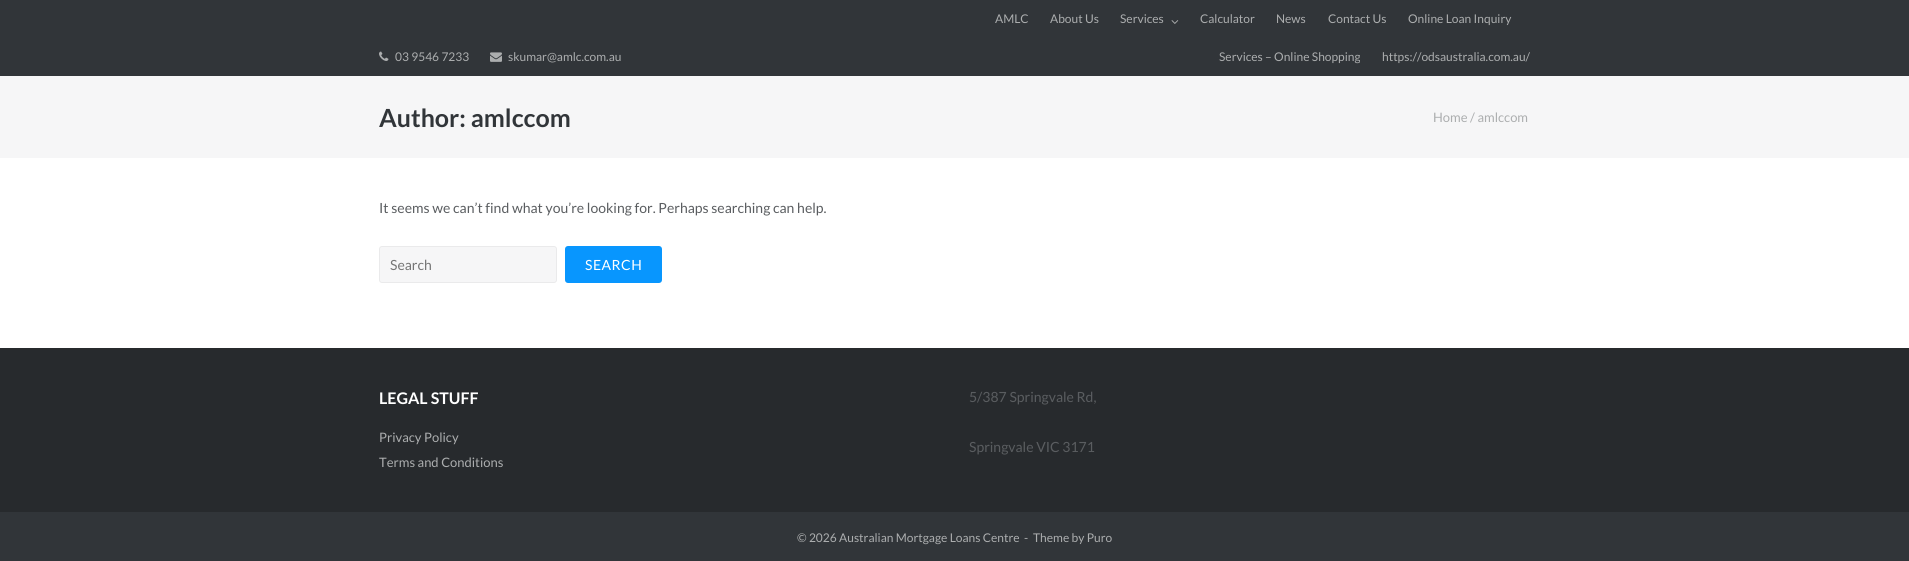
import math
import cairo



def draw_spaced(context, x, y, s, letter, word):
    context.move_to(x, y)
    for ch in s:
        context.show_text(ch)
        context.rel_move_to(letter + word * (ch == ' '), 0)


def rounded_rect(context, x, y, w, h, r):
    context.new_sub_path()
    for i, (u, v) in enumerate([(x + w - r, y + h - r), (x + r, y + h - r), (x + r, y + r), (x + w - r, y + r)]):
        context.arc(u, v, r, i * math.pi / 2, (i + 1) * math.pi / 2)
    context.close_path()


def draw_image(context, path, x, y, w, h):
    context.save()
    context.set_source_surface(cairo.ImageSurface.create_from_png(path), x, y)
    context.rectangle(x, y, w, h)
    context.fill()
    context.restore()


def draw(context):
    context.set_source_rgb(1, 1, 1)
    context.paint()
    context.set_source_rgb(49 / 255, 53 / 255, 57 / 255)
    context.rectangle(0, 0, 1909, 76)
    context.fill()
    draw_image(context, "images/1.png", 379, 51, 10, 10)
    draw_image(context, "images/2.png", 490, 52, 12, 10)
    draw_image(context, "images/3.png", 1171, 20, 8, 4)
    context.set_source_rgb(246 / 255, 246 / 255, 247 / 255)
    context.rectangle(0, 76, 1909, 82)
    context.fill()
    rounded_rect(context, 379.5, 246.5, 177, 36, 2.5)
    context.fill_preserve()
    context.set_source_rgb(234 / 255, 234 / 255, 235 / 255)
    context.set_line_width(1)
    context.stroke()
    context.set_source_rgb(8 / 255, 150 / 255, 254 / 255)
    rounded_rect(context, 565, 246, 97, 37, 3)
    context.fill()
    context.set_source_rgb(39 / 255, 42 / 255, 45 / 255)
    context.rectangle(0, 348, 1909, 164)
    context.fill()
    context.set_source_rgb(49 / 255, 53 / 255, 57 / 255)
    context.rectangle(0, 512, 1909, 49)
    context.fill()
    context.select_font_face("Lato")
    context.set_font_size(12)
    context.set_source_rgb(172 / 255, 174 / 255, 175 / 255)
    context.move_to(395, 61)
    context.show_text("03 9546 7233")
    context.move_to(508, 61)
    context.show_text("skumar@amlc.com.au")
    context.move_to(995, 23)
    context.show_text("AMLC")
    context.move_to(1050, 23)
    context.show_text("About Us")
    context.move_to(1120, 23)
    context.show_text("Services")
    context.move_to(1200, 23)
    context.show_text("Calculator")
    context.move_to(1276, 23)
    context.show_text("News")
    context.move_to(1328, 23)
    context.show_text("Contact Us")
    context.move_to(1408, 23)
    context.show_text("Online Loan Inquiry")
    context.move_to(1219, 61)
    context.show_text("Services – Online Shopping")
    context.move_to(1382, 61)
    context.show_text("https://odsaustralia.com.au/")
    context.select_font_face("Lato", cairo.FontSlant.NORMAL, cairo.FontWeight.BOLD)
    context.set_font_size(25)
    context.set_source_rgb(49 / 255, 53 / 255, 57 / 255)
    context.move_to(379, 127)
    context.show_text("Author: amlccom")
    context.select_font_face("Lato")
    context.set_font_size(13)
    context.set_source_rgb(172 / 255, 174 / 255, 175 / 255)
    context.move_to(1433, 122)
    context.show_text("Home / amlccom")
    context.set_font_size(14)
    context.set_source_rgb(90 / 255, 93 / 255, 96 / 255)
    context.move_to(379, 213)
    context.show_text("It seems we can’t find what you’re looking for. Perhaps searching can help.")
    context.set_source_rgb(117 / 255, 117 / 255, 117 / 255)
    context.move_to(390, 270)
    context.show_text("Search")
    context.set_source_rgb(1, 1, 1)
    draw_spaced(context, 585, 270, "SEARCH", 0.5, 0)
    context.select_font_face("Lato", cairo.FontSlant.NORMAL, cairo.FontWeight.BOLD)
    context.set_font_size(16)
    context.move_to(379, 404)
    context.show_text("LEGAL STUFF")
    context.select_font_face("Lato")
    context.set_font_size(13)
    context.set_source_rgb(172 / 255, 174 / 255, 175 / 255)
    context.move_to(379, 442)
    context.show_text("Privacy Policy")
    context.move_to(379, 467)
    context.show_text("Terms and Conditions")
    context.set_font_size(14)
    context.set_source_rgb(90 / 255, 93 / 255, 96 / 255)
    context.move_to(969, 402)
    context.show_text("5/387 Springvale Rd,")
    context.move_to(969, 452)
    context.show_text("Springvale VIC 3171")
    context.set_font_size(12)
    context.set_source_rgb(172 / 255, 174 / 255, 175 / 255)
    context.move_to(797, 542)
    context.show_text("© 2026 Australian Mortgage Loans Centre")
    context.move_to(1024, 542)
    context.show_text("-")
    context.move_to(1033, 542)
    context.show_text("Theme by Puro")


surface = cairo.ImageSurface(cairo.Format.RGB24, 1909, 561)
context = cairo.Context(surface)
options = cairo.FontOptions()
options.set_hint_metrics(cairo.HintMetrics.OFF)
options.set_hint_style(cairo.HintStyle.NONE)
context.set_font_options(options)
context.set_miter_limit(4)
draw(context)
surface.write_to_png("out.png")
